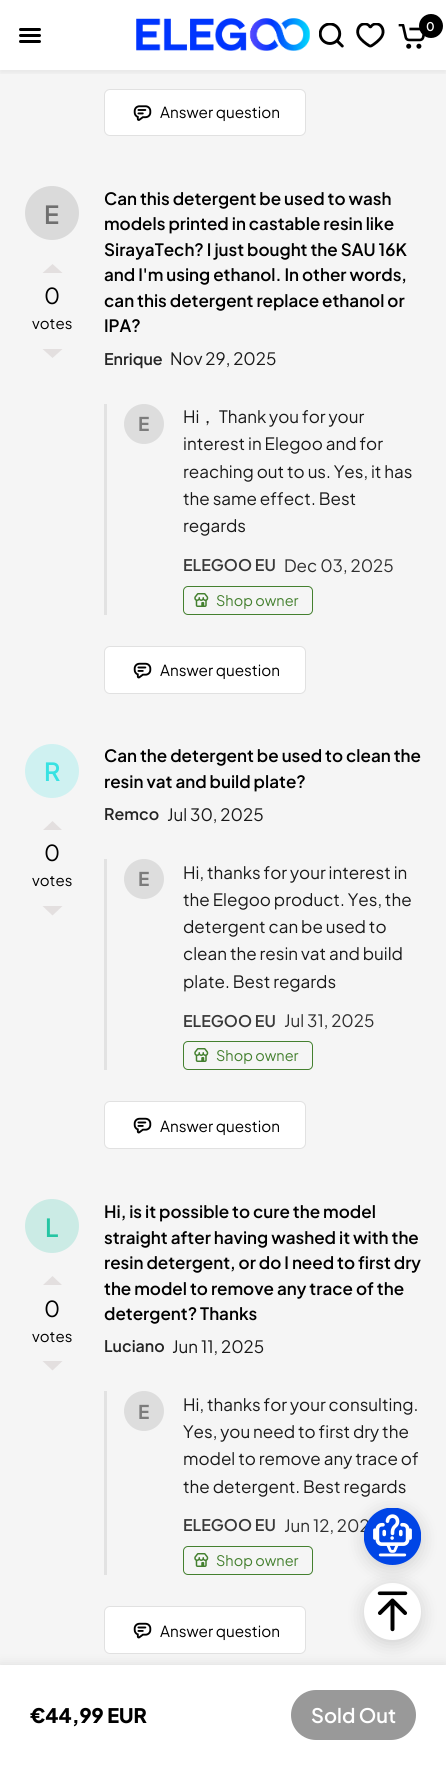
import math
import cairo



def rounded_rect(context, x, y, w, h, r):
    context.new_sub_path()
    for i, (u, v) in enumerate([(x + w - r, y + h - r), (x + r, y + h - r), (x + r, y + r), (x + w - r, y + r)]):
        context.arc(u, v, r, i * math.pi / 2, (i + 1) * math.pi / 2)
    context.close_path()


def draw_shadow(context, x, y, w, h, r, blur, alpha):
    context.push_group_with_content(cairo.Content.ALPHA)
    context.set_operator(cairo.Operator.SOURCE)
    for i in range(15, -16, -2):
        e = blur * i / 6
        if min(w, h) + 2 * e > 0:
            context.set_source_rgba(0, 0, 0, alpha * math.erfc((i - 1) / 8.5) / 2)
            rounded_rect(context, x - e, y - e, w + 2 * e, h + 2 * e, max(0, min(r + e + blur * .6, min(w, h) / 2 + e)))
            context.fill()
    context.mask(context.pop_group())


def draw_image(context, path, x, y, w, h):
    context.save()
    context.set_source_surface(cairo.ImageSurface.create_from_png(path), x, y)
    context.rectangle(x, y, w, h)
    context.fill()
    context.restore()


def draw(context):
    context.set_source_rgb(245 / 255, 245 / 255, 245 / 255)
    context.paint()
    context.set_source_rgb(1, 1, 1)
    context.rectangle(0, 0, 446, 70)
    context.fill()
    context.save()
    context.rectangle(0, 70, 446, 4)
    context.clip()
    context.set_source_rgb(0, 0, 0)
    draw_shadow(context, 0, 3, 446, 70, 0, 3, 0.06)
    context.restore()
    draw_image(context, "images/1.png", 136, 18, 174, 33)
    draw_image(context, "images/2.png", 319, 23, 25, 25)
    draw_image(context, "images/3.png", 356, 23, 29, 25)
    draw_image(context, "images/4.png", 398, 24, 27, 25)
    context.set_source_rgb(0, 0, 0)
    context.arc(431, 26, 12, 0, 2 * math.pi)
    context.fill()
    rounded_rect(context, 19, 28, 22, 3, 1.5)
    context.fill()
    rounded_rect(context, 19, 34, 22, 3, 1.5)
    context.fill()
    rounded_rect(context, 19, 40, 22, 3, 1.5)
    context.fill()
    context.set_source_rgb(1, 1, 1)
    rounded_rect(context, 104.5, 89.5, 201, 46, 5.5)
    context.fill_preserve()
    context.set_source_rgb(225 / 255, 225 / 255, 225 / 255)
    context.set_line_width(1)
    context.stroke()
    draw_image(context, "images/5.png", 133, 105, 19, 16)
    context.set_source_rgb(218 / 255, 218 / 255, 218 / 255)
    context.arc(52, 213, 27, 0, 2 * math.pi)
    context.fill()
    context.set_source_rgb(227 / 255, 223 / 255, 223 / 255)
    context.new_path()
    context.move_to(42.5, 273)
    context.line_to(52.5, 264)
    context.line_to(62.5, 273)
    context.close_path()
    context.fill()
    context.new_path()
    context.move_to(42.5, 349)
    context.line_to(52.5, 358)
    context.line_to(62.5, 349)
    context.close_path()
    context.fill()
    context.set_source_rgb(226 / 255, 226 / 255, 226 / 255)
    context.rectangle(104, 404, 3, 211)
    context.fill()
    context.set_source_rgb(221 / 255, 221 / 255, 221 / 255)
    context.arc(144, 424, 20, 0, 2 * math.pi)
    context.fill()
    rounded_rect(context, 183.5, 586.5, 129, 28, 4.5)
    context.set_source_rgb(68 / 255, 128 / 255, 47 / 255)
    context.stroke()
    draw_image(context, "images/6.png", 194, 593, 15, 14)
    context.set_source_rgb(1, 1, 1)
    rounded_rect(context, 104.5, 646.5, 201, 47, 5.5)
    context.fill_preserve()
    context.set_source_rgb(225 / 255, 225 / 255, 225 / 255)
    context.stroke()
    draw_image(context, "images/7.png", 133, 662, 19, 17)
    context.set_source_rgb(207 / 255, 241 / 255, 241 / 255)
    context.arc(52, 771, 27, 0, 2 * math.pi)
    context.fill()
    context.save()
    context.rectangle(43, 821, 20, 9)
    context.clip()
    context.set_source_rgb(227 / 255, 223 / 255, 223 / 255)
    context.new_path()
    context.move_to(42.5, 830.5)
    context.line_to(52.5, 821)
    context.line_to(62.5, 830.5)
    context.close_path()
    context.fill()
    context.restore()
    context.set_source_rgb(227 / 255, 223 / 255, 223 / 255)
    context.new_path()
    context.move_to(42.5, 906)
    context.line_to(52.5, 915.5)
    context.line_to(62.5, 906)
    context.close_path()
    context.fill()
    context.set_source_rgb(226 / 255, 226 / 255, 226 / 255)
    context.rectangle(104, 859, 3, 211)
    context.fill()
    context.set_source_rgb(221 / 255, 221 / 255, 221 / 255)
    context.arc(144, 879, 20, 0, 2 * math.pi)
    context.fill()
    rounded_rect(context, 183.5, 1041.5, 129, 28, 4.5)
    context.set_source_rgb(68 / 255, 128 / 255, 47 / 255)
    context.stroke()
    draw_image(context, "images/6.png", 194, 1048, 15, 14)
    context.set_source_rgb(1, 1, 1)
    rounded_rect(context, 104.5, 1101.5, 201, 47, 5.5)
    context.fill_preserve()
    context.set_source_rgb(225 / 255, 225 / 255, 225 / 255)
    context.stroke()
    draw_image(context, "images/7.png", 133, 1117, 19, 17)
    context.set_source_rgb(203 / 255, 235 / 255, 229 / 255)
    context.arc(52, 1226, 27, 0, 2 * math.pi)
    context.fill()
    context.save()
    context.rectangle(43, 1276, 20, 9)
    context.clip()
    context.set_source_rgb(227 / 255, 223 / 255, 223 / 255)
    context.new_path()
    context.move_to(42.5, 1285.5)
    context.line_to(52.5, 1276)
    context.line_to(62.5, 1285.5)
    context.close_path()
    context.fill()
    context.restore()
    context.set_source_rgb(227 / 255, 223 / 255, 223 / 255)
    context.new_path()
    context.move_to(42.5, 1361)
    context.line_to(52.5, 1370.5)
    context.line_to(62.5, 1361)
    context.close_path()
    context.fill()
    context.set_source_rgb(226 / 255, 226 / 255, 226 / 255)
    context.rectangle(104, 1391, 3, 184)
    context.fill()
    context.set_source_rgb(221 / 255, 221 / 255, 221 / 255)
    context.arc(144, 1411, 20, 0, 2 * math.pi)
    context.fill()
    rounded_rect(context, 183.5, 1546.5, 129, 28, 4.5)
    context.set_source_rgb(68 / 255, 128 / 255, 47 / 255)
    context.stroke()
    draw_image(context, "images/6.png", 194, 1553, 15, 14)
    context.set_source_rgb(1, 1, 1)
    rounded_rect(context, 104.5, 1606.5, 201, 47, 5.5)
    context.fill_preserve()
    context.set_source_rgb(225 / 255, 225 / 255, 225 / 255)
    context.stroke()
    draw_image(context, "images/7.png", 133, 1622, 19, 17)
    context.set_source_rgb(0, 0, 0)
    draw_shadow(context, 0, 1665, 446, 100, 0, 6, 0.1)
    draw_shadow(context, 364, 1586, 57, 58, 28.5, 9, 0.15)
    context.set_source_rgb(1, 1, 1)
    context.rectangle(0, 1665, 446, 100)
    context.fill()
    context.set_source_rgb(153 / 255, 153 / 255, 153 / 255)
    rounded_rect(context, 291, 1690, 125, 50, 25)
    context.fill()
    context.set_source_rgb(1, 1, 1)
    context.arc(392.5, 1611.5, 28.5, 0, 2 * math.pi)
    context.fill()
    draw_image(context, "images/9.png", 377, 1591, 31, 41)
    context.set_source_rgb(0, 0, 0)
    draw_shadow(context, 364, 1511, 57, 58, 28.5, 9, 0.15)
    context.select_font_face("Plus Jakarta Sans SemiBold")
    context.set_font_size(12)
    context.set_source_rgb(1, 1, 1)
    context.move_to(426, 31)
    context.show_text("0")
    context.select_font_face("Plus Jakarta Sans")
    context.set_font_size(15.25)
    context.set_source_rgb(0, 0, 0)
    context.move_to(160, 118)
    context.show_text("Answer question")
    context.select_font_face("Plus Jakarta Sans SemiBold")
    context.set_font_size(25)
    context.set_source_rgb(111 / 255, 111 / 255, 111 / 255)
    context.move_to(44, 224)
    context.show_text("E")
    context.select_font_face("Plus Jakarta Sans")
    context.set_font_size(22)
    context.set_source_rgb(0, 0, 0)
    context.move_to(44, 304)
    context.show_text("0")
    context.set_font_size(15)
    context.move_to(32, 329)
    context.show_text("votes")
    context.select_font_face("Plus Jakarta Sans SemiBold")
    context.set_font_size(17)
    context.move_to(104, 205)
    context.show_text("Can this detergent be used to wash")
    context.move_to(104, 230)
    context.show_text("models printed in castable resin like")
    context.move_to(104, 256)
    context.show_text("SirayaTech? I just bought the SAU 16K")
    context.move_to(104, 281)
    context.show_text("and I'm using ethanol. In other words,")
    context.move_to(104, 307)
    context.show_text("can this detergent replace ethanol or")
    context.move_to(104, 332)
    context.show_text("IPA?")
    context.set_font_size(16)
    context.set_source_rgb(36 / 255, 36 / 255, 36 / 255)
    context.move_to(104, 365)
    context.show_text("Enrique")
    context.select_font_face("Plus Jakarta Sans")
    context.set_font_size(17)
    context.set_source_rgb(25 / 255, 25 / 255, 25 / 255)
    context.move_to(170, 365)
    context.show_text("Nov 29, 2025")
    context.select_font_face("Plus Jakarta Sans", cairo.FontSlant.NORMAL, cairo.FontWeight.BOLD)
    context.set_font_size(19)
    context.set_source_rgb(124 / 255, 124 / 255, 124 / 255)
    context.move_to(138, 431)
    context.show_text("E")
    context.select_font_face("Plus Jakarta Sans")
    context.set_font_size(17)
    context.set_source_rgb(25 / 255, 25 / 255, 25 / 255)
    context.move_to(183, 423)
    context.show_text("Hi")
    context.select_font_face("WenQuanYi Zen Hei Medium")
    context.move_to(199, 423)
    context.show_text("，")
    context.select_font_face("Plus Jakarta Sans")
    context.move_to(219, 423)
    context.show_text("Thank you for your")
    context.move_to(183, 450)
    context.show_text("interest in Elegoo and for")
    context.move_to(183, 478)
    context.show_text("reaching out to us. Yes, it has")
    context.move_to(183, 505)
    context.show_text("the same effect. Best")
    context.move_to(183, 532)
    context.show_text("regards")
    context.select_font_face("Plus Jakarta Sans SemiBold")
    context.set_font_size(16)
    context.set_source_rgb(56 / 255, 56 / 255, 56 / 255)
    context.move_to(183, 571)
    context.show_text("ELEGOO EU")
    context.select_font_face("Plus Jakarta Sans")
    context.set_font_size(17)
    context.set_source_rgb(47 / 255, 47 / 255, 47 / 255)
    context.move_to(284, 572)
    context.show_text("Dec 03, 2025")
    context.set_font_size(14.5)
    context.set_source_rgb(68 / 255, 128 / 255, 47 / 255)
    context.move_to(216, 606)
    context.show_text("Shop owner")
    context.set_font_size(15.25)
    context.set_source_rgb(0, 0, 0)
    context.move_to(160, 676)
    context.show_text("Answer question")
    context.select_font_face("Plus Jakarta Sans SemiBold")
    context.set_font_size(25)
    context.set_source_rgb(56 / 255, 226 / 255, 226 / 255)
    context.move_to(44, 781)
    context.show_text("R")
    context.select_font_face("Plus Jakarta Sans")
    context.set_font_size(22)
    context.set_source_rgb(0, 0, 0)
    context.move_to(44, 861)
    context.show_text("0")
    context.set_font_size(15)
    context.move_to(32, 886)
    context.show_text("votes")
    context.select_font_face("Plus Jakarta Sans SemiBold")
    context.set_font_size(17)
    context.move_to(104, 762)
    context.show_text("Can the detergent be used to clean the")
    context.move_to(104, 788)
    context.show_text("resin vat and build plate?")
    context.set_font_size(16)
    context.set_source_rgb(36 / 255, 36 / 255, 36 / 255)
    context.move_to(104, 820)
    context.show_text("Remco")
    context.select_font_face("Plus Jakarta Sans")
    context.set_font_size(17)
    context.set_source_rgb(25 / 255, 25 / 255, 25 / 255)
    context.move_to(167, 821)
    context.show_text("Jul 30, 2025")
    context.select_font_face("Plus Jakarta Sans", cairo.FontSlant.NORMAL, cairo.FontWeight.BOLD)
    context.set_font_size(19)
    context.set_source_rgb(124 / 255, 124 / 255, 124 / 255)
    context.move_to(138, 886)
    context.show_text("E")
    context.select_font_face("Plus Jakarta Sans")
    context.set_font_size(17)
    context.set_source_rgb(25 / 255, 25 / 255, 25 / 255)
    context.move_to(183, 879)
    context.show_text("Hi, thanks for your interest in")
    context.move_to(183, 906)
    context.show_text("the Elegoo product. Yes, the")
    context.move_to(183, 933)
    context.show_text("detergent can be used to")
    context.move_to(183, 960)
    context.show_text("clean the resin vat and build")
    context.move_to(183, 988)
    context.show_text("plate. Best regards")
    context.select_font_face("Plus Jakarta Sans SemiBold")
    context.set_font_size(16)
    context.set_source_rgb(56 / 255, 56 / 255, 56 / 255)
    context.move_to(183, 1027)
    context.show_text("ELEGOO EU")
    context.select_font_face("Plus Jakarta Sans")
    context.set_font_size(17)
    context.set_source_rgb(47 / 255, 47 / 255, 47 / 255)
    context.move_to(284, 1027)
    context.show_text("Jul 31, 2025")
    context.set_font_size(14.5)
    context.set_source_rgb(68 / 255, 128 / 255, 47 / 255)
    context.move_to(216, 1061)
    context.show_text("Shop owner")
    context.set_font_size(15.25)
    context.set_source_rgb(0, 0, 0)
    context.move_to(160, 1132)
    context.show_text("Answer question")
    context.select_font_face("Plus Jakarta Sans SemiBold")
    context.set_font_size(25)
    context.set_source_rgb(37 / 255, 197 / 255, 163 / 255)
    context.move_to(45, 1237)
    context.show_text("L")
    context.select_font_face("Plus Jakarta Sans")
    context.set_font_size(22)
    context.set_source_rgb(0, 0, 0)
    context.move_to(44, 1317)
    context.show_text("0")
    context.set_font_size(15)
    context.move_to(32, 1342)
    context.show_text("votes")
    context.select_font_face("Plus Jakarta Sans SemiBold")
    context.set_font_size(17)
    context.move_to(104, 1218)
    context.show_text("Hi, is it possible to cure the model")
    context.move_to(104, 1244)
    context.show_text("straight after having washed it with the")
    context.move_to(104, 1269)
    context.show_text("resin detergent, or do I need to first dry")
    context.move_to(104, 1295)
    context.show_text("the model to remove any trace of the")
    context.move_to(104, 1320)
    context.show_text("detergent? Thanks")
    context.set_font_size(16)
    context.set_source_rgb(36 / 255, 36 / 255, 36 / 255)
    context.move_to(104, 1352)
    context.show_text("Luciano")
    context.select_font_face("Plus Jakarta Sans")
    context.set_font_size(17)
    context.set_source_rgb(25 / 255, 25 / 255, 25 / 255)
    context.move_to(172, 1353)
    context.show_text("Jun 11, 2025")
    context.select_font_face("Plus Jakarta Sans", cairo.FontSlant.NORMAL, cairo.FontWeight.BOLD)
    context.set_font_size(19)
    context.set_source_rgb(124 / 255, 124 / 255, 124 / 255)
    context.move_to(138, 1419)
    context.show_text("E")
    context.select_font_face("Plus Jakarta Sans")
    context.set_font_size(17)
    context.set_source_rgb(25 / 255, 25 / 255, 25 / 255)
    context.move_to(183, 1411)
    context.show_text("Hi, thanks for your consulting.")
    context.move_to(183, 1438)
    context.show_text("Yes, you need to first dry the")
    context.move_to(183, 1465)
    context.show_text("model to remove any trace of")
    context.move_to(183, 1493)
    context.show_text("the detergent. Best regards")
    context.select_font_face("Plus Jakarta Sans SemiBold")
    context.set_font_size(16)
    context.set_source_rgb(56 / 255, 56 / 255, 56 / 255)
    context.move_to(183, 1531)
    context.show_text("ELEGOO EU")
    context.select_font_face("Plus Jakarta Sans")
    context.set_font_size(17)
    context.set_source_rgb(47 / 255, 47 / 255, 47 / 255)
    context.move_to(284, 1532)
    context.show_text("Jun 12, 202")
    context.set_font_size(14.5)
    context.set_source_rgb(68 / 255, 128 / 255, 47 / 255)
    context.move_to(216, 1566)
    context.show_text("Shop owner")
    context.set_font_size(15.25)
    context.set_source_rgb(0, 0, 0)
    context.move_to(160, 1637)
    context.show_text("Answer question")
    context.select_font_face("Plus Jakarta Sans ExtraBold")
    context.set_font_size(20)
    context.move_to(30, 1723)
    context.show_text("€44,99 EUR")
    context.select_font_face("Plus Jakarta Sans SemiBold")
    context.set_source_rgb(1, 1, 1)
    context.move_to(311, 1723)
    context.show_text("Sold Out")
    draw_image(context, "images/8.png", 364, 1508, 57, 57)


surface = cairo.ImageSurface(cairo.Format.RGB24, 446, 1765)
context = cairo.Context(surface)
options = cairo.FontOptions()
options.set_hint_metrics(cairo.HintMetrics.OFF)
options.set_hint_style(cairo.HintStyle.NONE)
context.set_font_options(options)
context.set_miter_limit(4)
draw(context)
surface.write_to_png("out.png")
